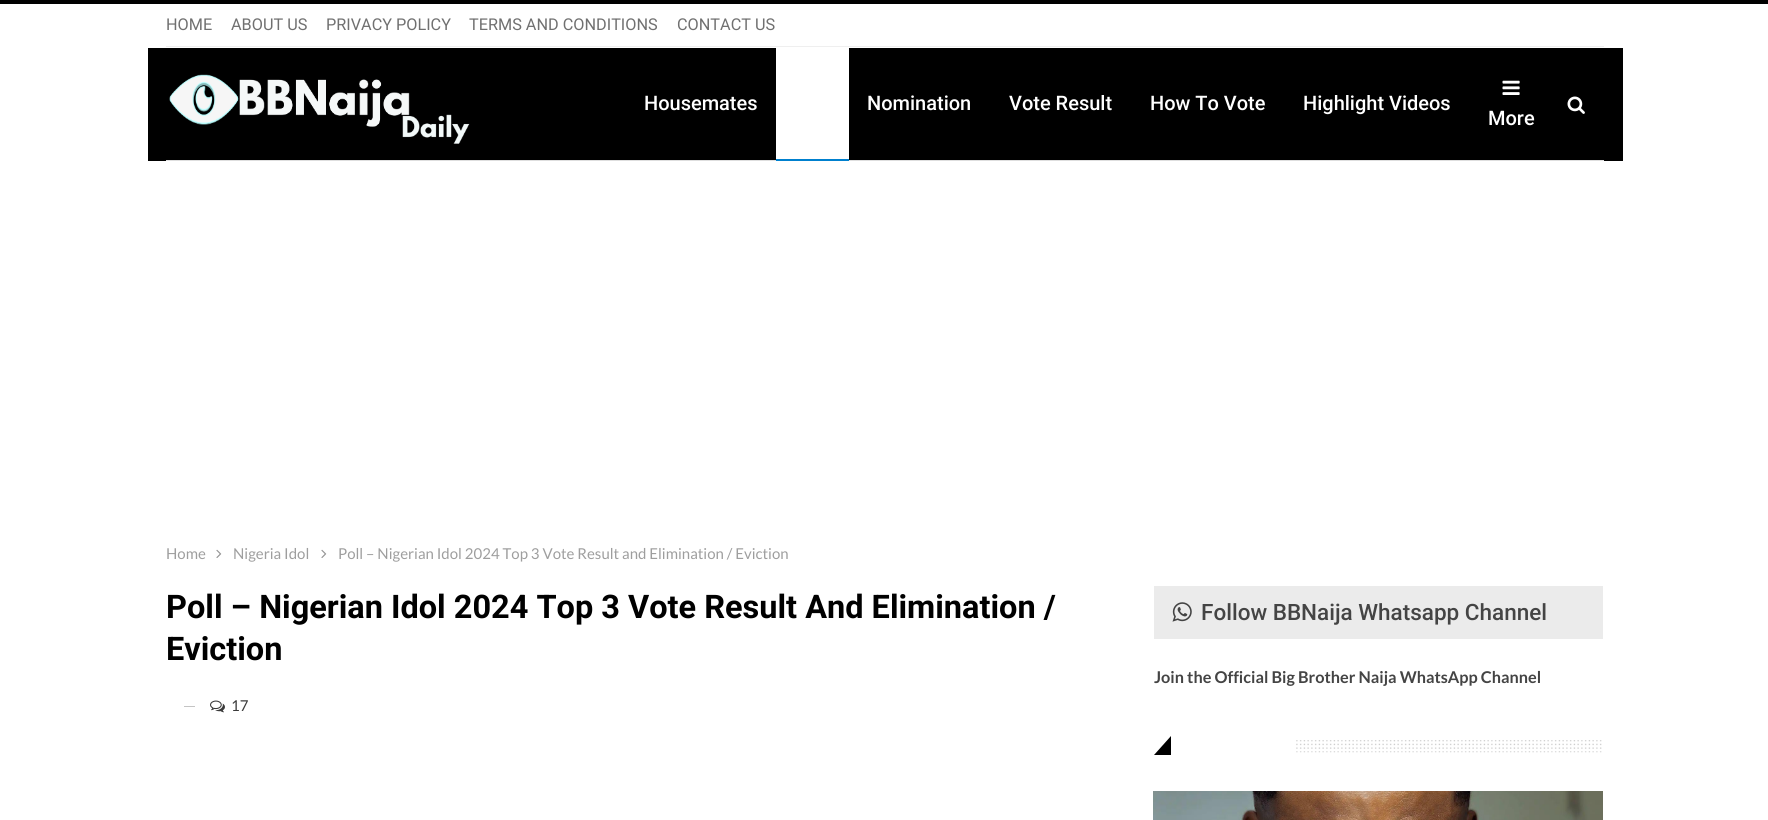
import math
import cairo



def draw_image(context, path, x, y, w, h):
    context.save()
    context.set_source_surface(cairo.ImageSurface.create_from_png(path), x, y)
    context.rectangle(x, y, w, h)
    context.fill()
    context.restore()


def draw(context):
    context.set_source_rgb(1, 1, 1)
    context.paint()
    context.set_source_rgb(0, 0, 0)
    context.rectangle(0, 0, 1768, 4)
    context.fill()
    context.set_source_rgb(239 / 255, 239 / 255, 239 / 255)
    context.rectangle(166, 46, 1438, 1)
    context.fill()
    context.set_source_rgb(0, 0, 0)
    context.rectangle(148, 48, 1475, 113)
    context.fill()
    context.set_source_rgb(222 / 255, 222 / 255, 222 / 255)
    context.rectangle(166, 160, 1438, 1)
    context.fill()
    draw_image(context, "images/1.png", 169, 74, 301, 70)
    context.set_source_rgb(1, 1, 1)
    context.rectangle(776, 48, 73, 111)
    context.fill()
    context.set_source_rgb(0, 128 / 255, 206 / 255)
    context.rectangle(776, 159, 73, 2)
    context.fill()
    draw_image(context, "images/2.png", 1502, 80, 18, 15)
    draw_image(context, "images/3.png", 1567, 96, 18, 18)
    draw_image(context, "images/4.png", 216, 549, 6, 9)
    draw_image(context, "images/4.png", 321, 549, 6, 9)
    context.set_source_rgb(196 / 255, 196 / 255, 196 / 255)
    context.rectangle(184, 706, 11, 1)
    context.fill()
    draw_image(context, "images/5.png", 210, 700, 15, 13)
    context.set_source_rgb(235 / 255, 235 / 255, 235 / 255)
    context.rectangle(1154, 586, 449, 53)
    context.fill()
    draw_image(context, "images/6.png", 1172, 602, 20, 20)
    context.set_source_rgb(0, 0, 0)
    context.new_path()
    context.move_to(1171, 736)
    context.line_to(1171, 755)
    context.line_to(1154, 755)
    context.close_path()
    context.fill()
    draw_image(context, "images/7.png", 1296, 740, 306, 13)
    draw_image(context, "images/8.png", 1153, 791, 450, 29)
    context.select_font_face("Roboto")
    context.set_font_size(16.25)
    context.set_source_rgb(112 / 255, 112 / 255, 112 / 255)
    context.move_to(166, 30)
    context.show_text("HOME")
    context.move_to(231, 30)
    context.show_text("ABOUT US")
    context.move_to(326, 30)
    context.show_text("PRIVACY POLICY")
    context.move_to(469, 30)
    context.show_text("TERMS AND CONDITIONS")
    context.move_to(677, 30)
    context.show_text("CONTACT US")
    context.select_font_face("Roboto Medium")
    context.set_font_size(20)
    context.set_source_rgb(1, 1, 1)
    context.move_to(644, 110)
    context.show_text("Housemates")
    context.move_to(867, 110)
    context.show_text("Nomination")
    context.move_to(1009, 110)
    context.show_text("Vote Result")
    context.move_to(1150, 110)
    context.show_text("How To Vote")
    context.move_to(1303, 110)
    context.show_text("Highlight Videos")
    context.move_to(1488, 125)
    context.show_text("More")
    context.select_font_face("Lato")
    context.set_font_size(15)
    context.set_source_rgb(158 / 255, 158 / 255, 158 / 255)
    context.move_to(166, 559)
    context.show_text("Home")
    context.move_to(233, 559)
    context.show_text("Nigeria Idol")
    context.move_to(338, 559)
    context.show_text("Poll – Nigerian Idol 2024 Top 3 Vote Result and Elimination / Eviction")
    context.select_font_face("Roboto", cairo.FontSlant.NORMAL, cairo.FontWeight.BOLD)
    context.set_font_size(32.5)
    context.set_source_rgb(0, 0, 0)
    context.move_to(166, 618)
    context.show_text("Poll – Nigerian Idol 2024 Top 3 Vote Result And Elimination /")
    context.move_to(166, 660)
    context.show_text("Eviction")
    context.select_font_face("Lato")
    context.set_font_size(15)
    context.set_source_rgb(58 / 255, 58 / 255, 58 / 255)
    context.move_to(231, 711)
    context.show_text("17")
    context.select_font_face("Roboto Medium")
    context.set_font_size(22.5)
    context.set_source_rgb(68 / 255, 68 / 255, 68 / 255)
    context.move_to(1201, 620)
    context.show_text("Follow BBNaija Whatsapp Channel")
    context.select_font_face("Lato", cairo.FontSlant.NORMAL, cairo.FontWeight.BOLD)
    context.set_font_size(16.25)
    context.move_to(1154, 683)
    context.show_text("Join the Official Big Brother Naija WhatsApp Channel")


surface = cairo.ImageSurface(cairo.Format.RGB24, 1768, 820)
context = cairo.Context(surface)
options = cairo.FontOptions()
options.set_hint_metrics(cairo.HintMetrics.OFF)
options.set_hint_style(cairo.HintStyle.NONE)
context.set_font_options(options)
context.set_miter_limit(4)
draw(context)
surface.write_to_png("out.png")
